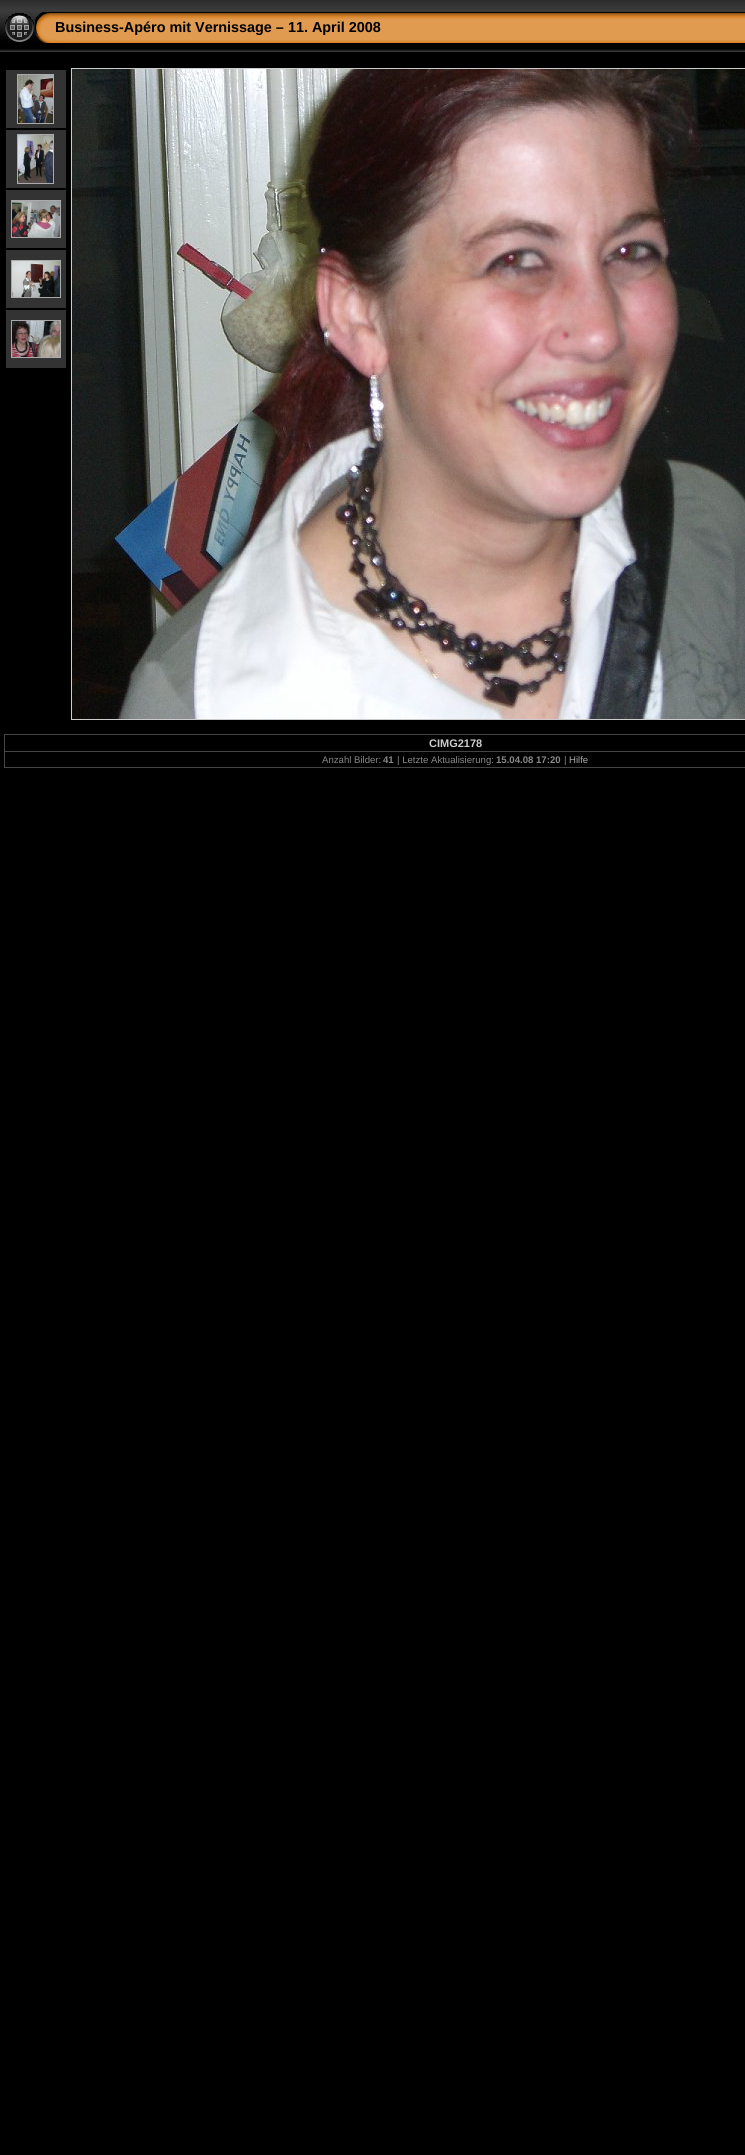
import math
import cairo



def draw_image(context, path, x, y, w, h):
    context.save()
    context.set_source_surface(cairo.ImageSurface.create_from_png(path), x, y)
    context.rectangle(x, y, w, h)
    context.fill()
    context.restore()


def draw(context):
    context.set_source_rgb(0, 0, 0)
    context.paint()
    draw_image(context, "images/1.png", 0, 0, 745, 52)
    draw_image(context, "images/2.png", 5, 13, 29, 29)
    draw_image(context, "images/3.png", 35, 12, 20, 31)
    draw_image(context, "images/4.png", 55, 12, 690, 31)
    context.set_source_rgb(51 / 255, 51 / 255, 51 / 255)
    context.rectangle(6, 70, 60, 58)
    context.fill()
    context.rectangle(17.5, 74.5, 36, 49)
    context.set_source_rgb(170 / 255, 170 / 255, 170 / 255)
    context.set_line_width(1)
    context.stroke()
    draw_image(context, "images/5.png", 18, 75, 35, 48)
    context.set_source_rgb(51 / 255, 51 / 255, 51 / 255)
    context.rectangle(6, 130, 60, 58)
    context.fill()
    context.rectangle(17.5, 134.5, 36, 49)
    context.set_source_rgb(170 / 255, 170 / 255, 170 / 255)
    context.stroke()
    draw_image(context, "images/6.png", 18, 135, 35, 48)
    context.set_source_rgb(51 / 255, 51 / 255, 51 / 255)
    context.rectangle(6, 190, 60, 58)
    context.fill()
    context.rectangle(11.5, 200.5, 49, 37)
    context.set_source_rgb(170 / 255, 170 / 255, 170 / 255)
    context.stroke()
    draw_image(context, "images/7.png", 12, 201, 48, 36)
    context.set_source_rgb(51 / 255, 51 / 255, 51 / 255)
    context.rectangle(6, 250, 60, 58)
    context.fill()
    context.rectangle(11.5, 260.5, 49, 37)
    context.set_source_rgb(170 / 255, 170 / 255, 170 / 255)
    context.stroke()
    draw_image(context, "images/8.png", 12, 261, 48, 36)
    context.set_source_rgb(51 / 255, 51 / 255, 51 / 255)
    context.rectangle(6, 310, 60, 58)
    context.fill()
    context.rectangle(11.5, 320.5, 49, 37)
    context.set_source_rgb(170 / 255, 170 / 255, 170 / 255)
    context.stroke()
    draw_image(context, "images/9.png", 12, 321, 48, 36)
    context.rectangle(71.5, 68.5, 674, 651)
    context.set_source_rgb(204 / 255, 204 / 255, 204 / 255)
    context.stroke()
    draw_image(context, "images/10.png", 72, 69, 673, 650)
    context.set_source_rgb(68 / 255, 68 / 255, 68 / 255)
    context.rectangle(4, 734, 741, 1)
    context.fill()
    context.rectangle(4, 767, 741, 1)
    context.fill()
    context.rectangle(4, 734, 1, 34)
    context.fill()
    context.rectangle(4, 751, 741, 1)
    context.fill()
    context.select_font_face("Liberation Sans", cairo.FontSlant.NORMAL, cairo.FontWeight.BOLD)
    context.set_font_size(14.4)
    context.set_source_rgb(0, 0, 0)
    context.move_to(55, 32)
    context.show_text("Business-Apéro mit Vernissage – 11. April 2008")
    context.set_font_size(11)
    context.set_source_rgb(204 / 255, 204 / 255, 204 / 255)
    context.move_to(429, 747)
    context.show_text("CIMG2178")
    context.select_font_face("Liberation Sans")
    context.set_font_size(9.6)
    context.set_source_rgb(136 / 255, 136 / 255, 136 / 255)
    context.move_to(322, 763)
    context.show_text("Anzahl Bilder:")
    context.select_font_face("Liberation Sans", cairo.FontSlant.NORMAL, cairo.FontWeight.BOLD)
    context.move_to(383, 763)
    context.show_text("41")
    context.select_font_face("Liberation Sans")
    context.move_to(397, 763)
    context.show_text("| Letzte Aktualisierung:")
    context.select_font_face("Liberation Sans", cairo.FontSlant.NORMAL, cairo.FontWeight.BOLD)
    context.move_to(496, 763)
    context.show_text("15.04.08 17:20")
    context.select_font_face("Liberation Sans")
    context.move_to(564, 763)
    context.show_text("|")
    context.set_source_rgb(170 / 255, 170 / 255, 170 / 255)
    context.move_to(569, 763)
    context.show_text("Hilfe")


surface = cairo.ImageSurface(cairo.Format.RGB24, 745, 2155)
context = cairo.Context(surface)
options = cairo.FontOptions()
options.set_hint_metrics(cairo.HintMetrics.OFF)
options.set_hint_style(cairo.HintStyle.NONE)
context.set_font_options(options)
context.set_miter_limit(4)
draw(context)
surface.write_to_png("out.png")
